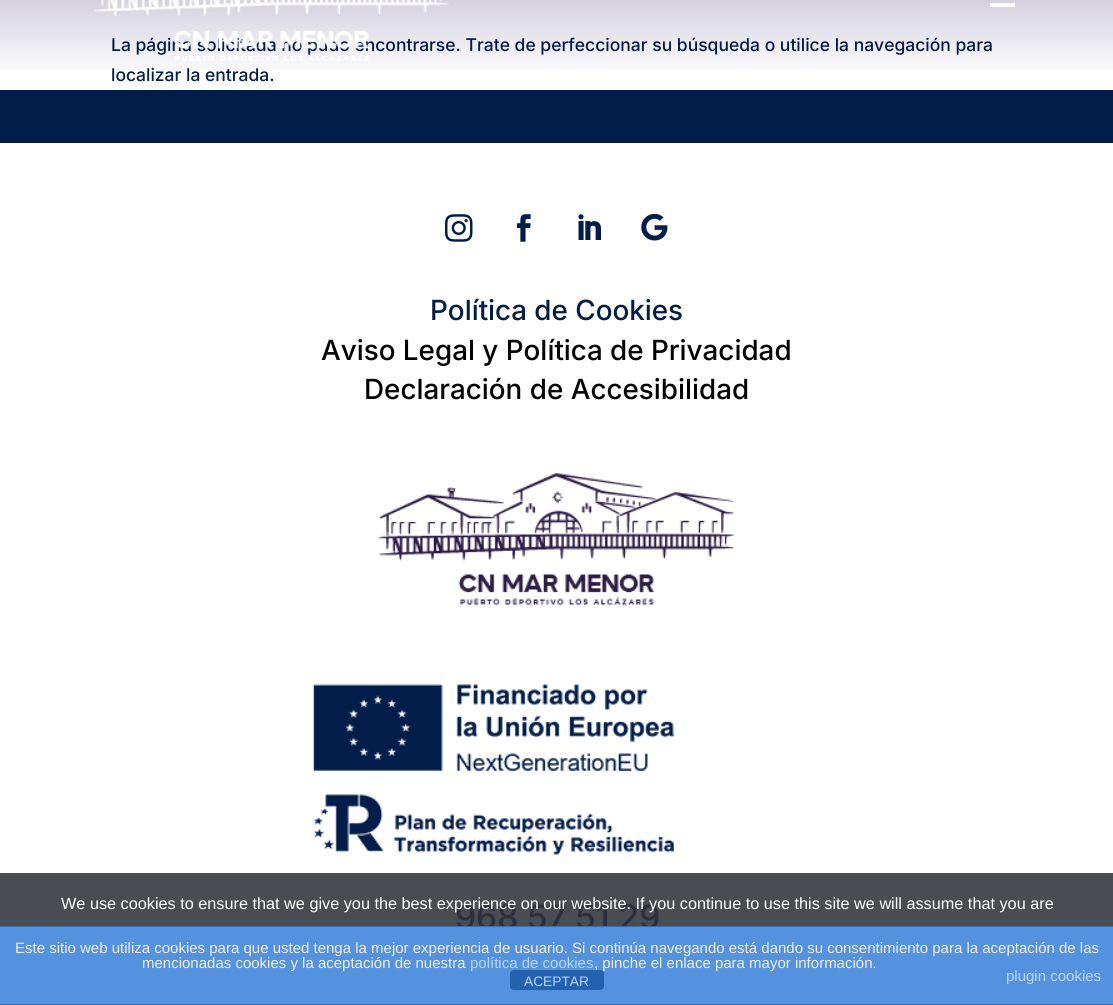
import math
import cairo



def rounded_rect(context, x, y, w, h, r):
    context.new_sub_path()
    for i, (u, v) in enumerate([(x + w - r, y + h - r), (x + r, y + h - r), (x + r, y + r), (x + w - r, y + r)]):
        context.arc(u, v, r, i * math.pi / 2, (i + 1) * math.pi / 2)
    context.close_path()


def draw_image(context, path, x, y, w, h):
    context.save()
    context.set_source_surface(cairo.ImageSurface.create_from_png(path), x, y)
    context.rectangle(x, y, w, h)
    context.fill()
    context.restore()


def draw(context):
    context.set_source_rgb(2 / 255, 29 / 255, 73 / 255)
    context.paint()
    context.set_source_rgb(1, 1, 1)
    context.rectangle(0, 0, 1113, 90)
    context.fill()
    context.rectangle(0, 143, 1113, 730)
    context.fill()
    context.set_source_rgb(75 / 255, 75 / 255, 82 / 255)
    context.rectangle(0, 873, 1113, 53)
    context.fill()
    draw_image(context, "images/2.png", 445, 214, 28, 28)
    draw_image(context, "images/3.png", 516, 214, 15, 28)
    draw_image(context, "images/4.png", 578, 214, 24, 26)
    draw_image(context, "images/5.png", 641, 213, 27, 28)
    draw_image(context, "images/6.png", 378, 473, 356, 133)
    draw_image(context, "images/7.png", 313, 684, 361, 171)
    context.set_source_rgb(63 / 255, 109 / 255, 167 / 255)
    context.rectangle(0, 1004, 1113, 1)
    context.fill()
    context.select_font_face("Inter Medium")
    context.set_font_size(17.5)
    context.set_source_rgb(2 / 255, 29 / 255, 73 / 255)
    context.move_to(111, 51)
    context.show_text("La página solicitada no pudo encontrarse. Trate de perfeccionar su búsqueda o utilice la navegación para")
    context.move_to(111, 81)
    context.show_text("localizar la entrada.")
    gradient = cairo.LinearGradient(557, -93, 557, 81)
    gradient.add_color_stop_rgba(0.01, 16 / 255, 0, 71 / 255, 0.39)
    gradient.add_color_stop_rgba(0.99, 16 / 255, 0, 71 / 255, 0)
    context.set_source(gradient)
    context.rectangle(0, 0, 1113, 70)
    context.fill()
    context.set_source_rgb(1, 1, 1)
    context.rectangle(990, 3, 25, 4)
    context.fill()
    draw_image(context, "images/1.png", 94, 0, 355, 61)
    context.set_font_size(27.8)
    context.set_source_rgb(2 / 255, 29 / 255, 73 / 255)
    context.move_to(430, 320)
    context.show_text("Política de Cookies")
    context.set_source_rgb(0, 0, 0)
    context.move_to(321, 360)
    context.show_text("Aviso Legal y Política de Privacidad")
    context.move_to(364, 399)
    context.show_text("Declaración de Accesibilidad")
    context.set_font_size(33.5)
    context.set_source_rgb(44 / 255, 47 / 255, 60 / 255)
    context.move_to(455, 929)
    context.show_text("968 57 51 29")
    context.select_font_face("Liberation Sans")
    context.set_font_size(16.25)
    context.set_source_rgb(1, 1, 1)
    context.move_to(61, 909)
    context.show_text("We use cookies to ensure that we give you the best experience on our website. If you continue to use this site we will assume that you are")
    context.set_source_rgb(84 / 255, 146 / 255, 224 / 255)
    context.rectangle(0, 927, 1113, 77)
    context.fill()
    context.set_source_rgb(63 / 255, 109 / 255, 167 / 255)
    context.rectangle(0, 926, 1113, 1)
    context.fill()
    context.set_font_size(15)
    context.set_source_rgb(238 / 255, 238 / 255, 238 / 255)
    context.move_to(15, 953)
    context.show_text("Este sitio web utiliza cookies para que usted tenga la mejor experiencia de usuario. Si continúa navegando está dando su consentimiento para la aceptación de las")
    context.move_to(142, 968)
    context.show_text("mencionadas cookies y la aceptación de nuestra")
    context.set_source_rgb(183 / 255, 215 / 255, 1)
    context.move_to(1006, 981)
    context.show_text("plugin cookies")
    context.set_source_rgb(36 / 255, 98 / 255, 176 / 255)
    rounded_rect(context, 510, 970, 94, 20, 4)
    context.fill()
    context.set_source_rgb(238 / 255, 238 / 255, 238 / 255)
    context.move_to(594, 968)
    context.show_text(", pinche el enlace para mayor información.")
    context.set_source_rgb(183 / 255, 215 / 255, 1)
    context.move_to(470, 968)
    context.show_text("política de cookies")
    context.set_font_size(13.75)
    context.move_to(524, 986)
    context.show_text("ACEPTAR")


surface = cairo.ImageSurface(cairo.Format.RGB24, 1113, 1005)
context = cairo.Context(surface)
options = cairo.FontOptions()
options.set_hint_metrics(cairo.HintMetrics.OFF)
options.set_hint_style(cairo.HintStyle.NONE)
context.set_font_options(options)
context.set_miter_limit(4)
draw(context)
surface.write_to_png("out.png")
